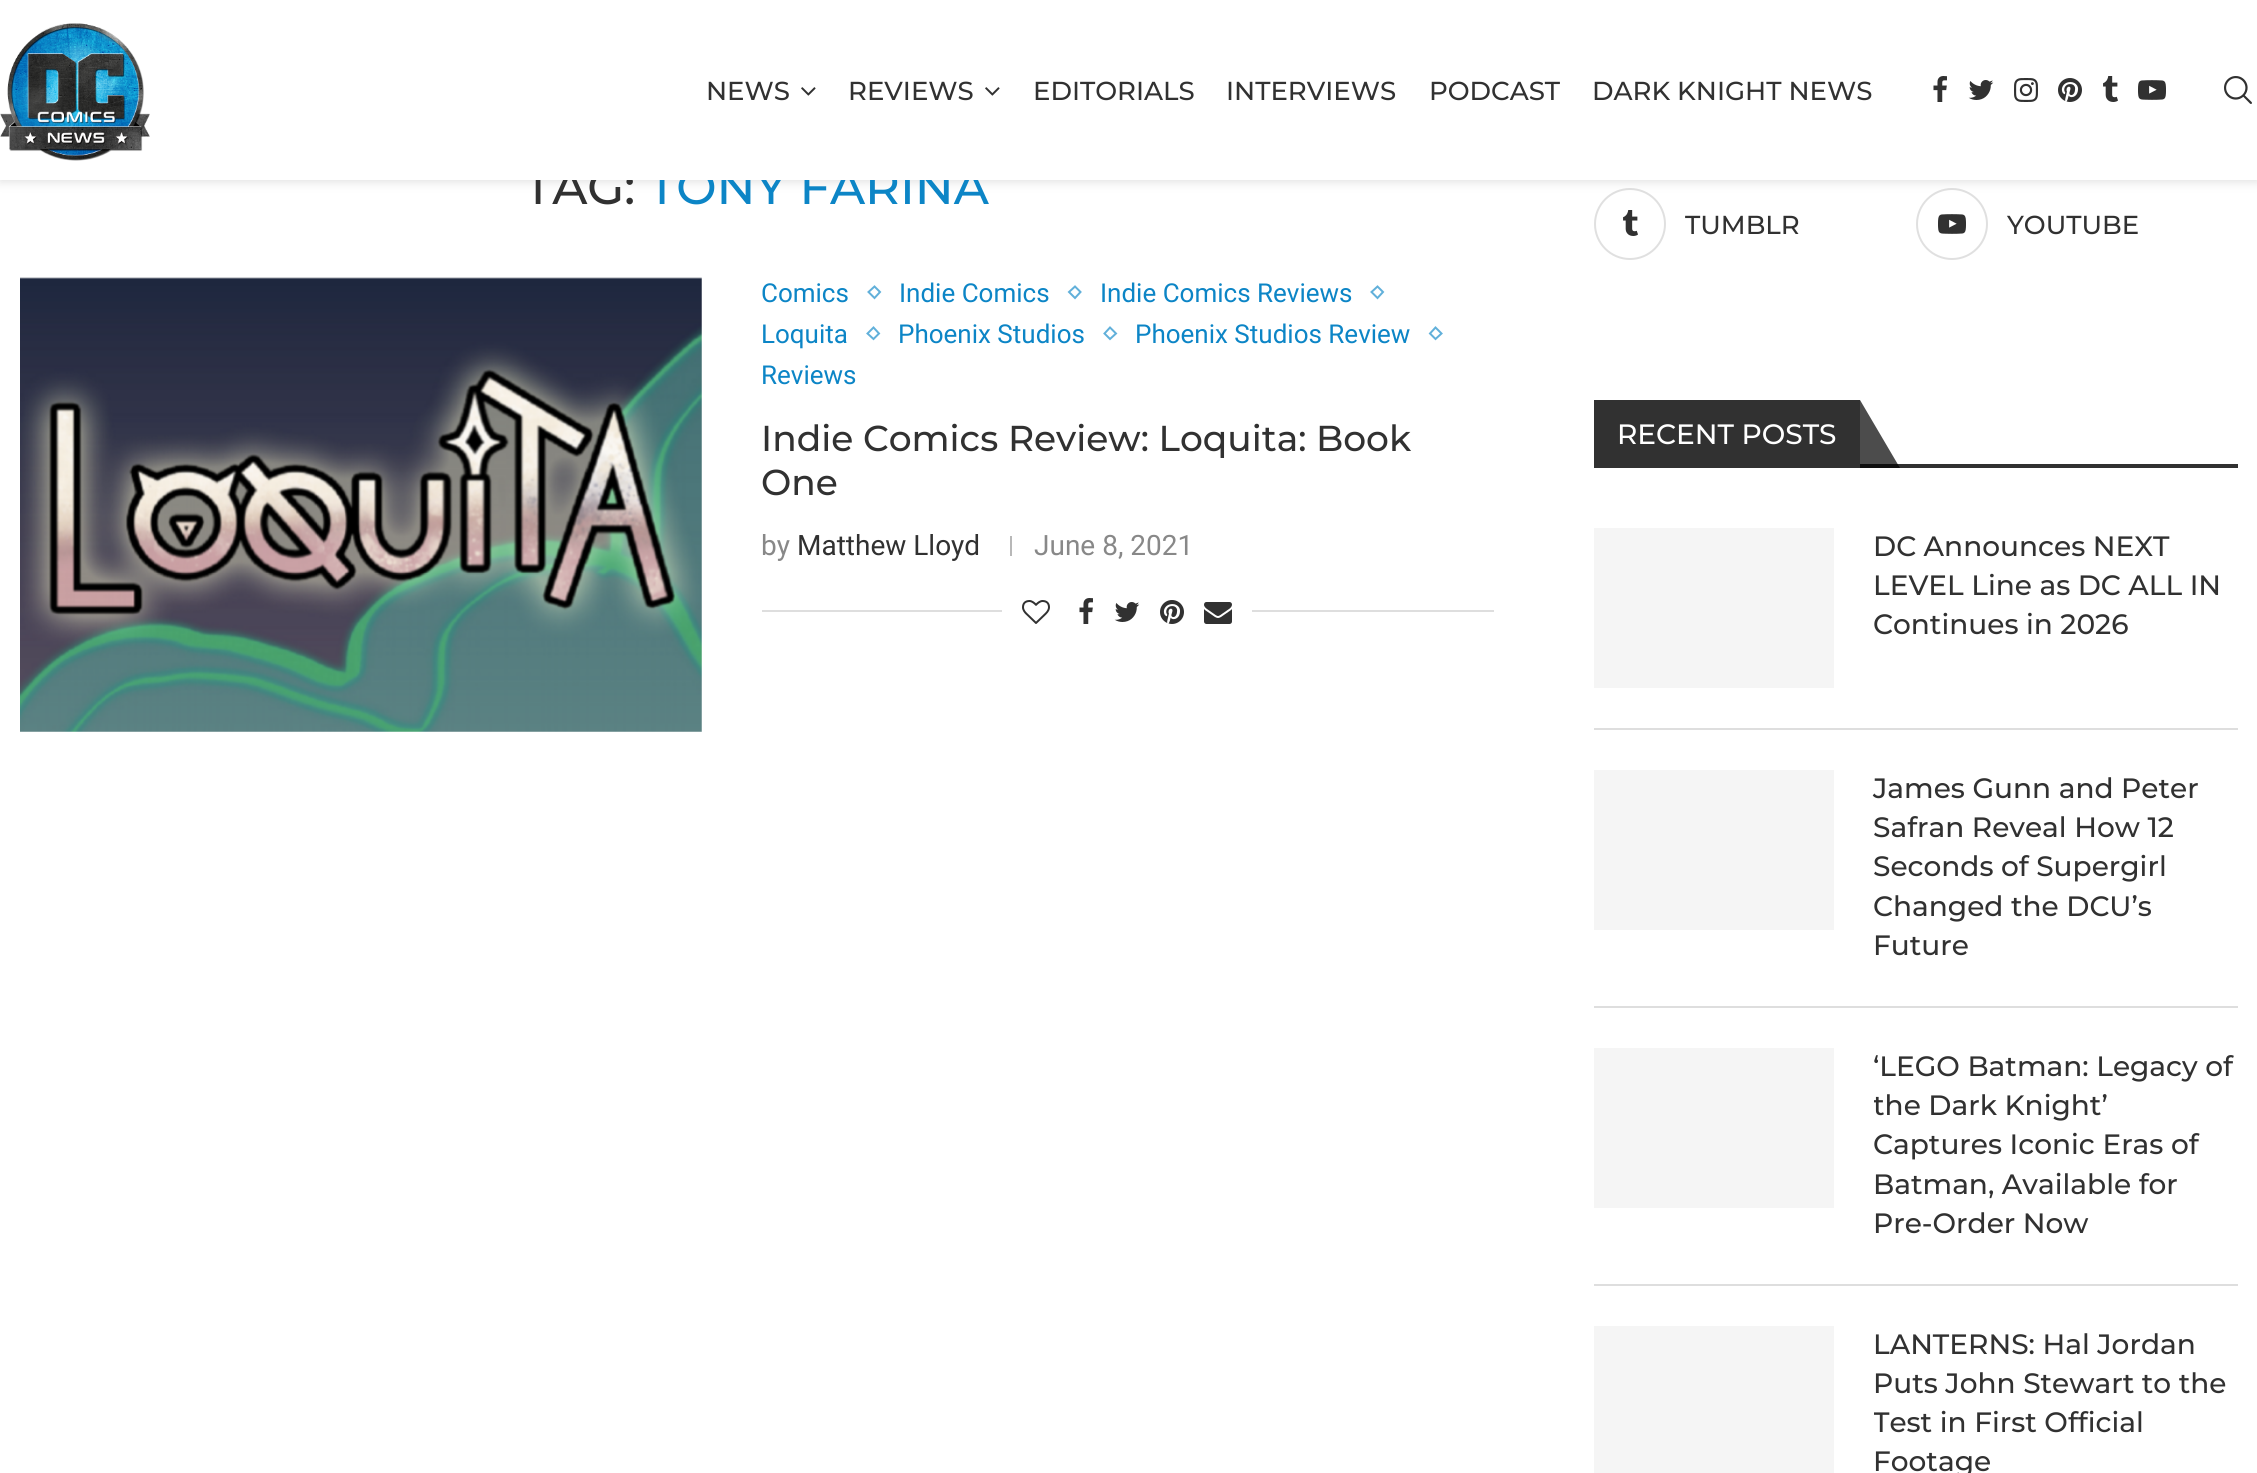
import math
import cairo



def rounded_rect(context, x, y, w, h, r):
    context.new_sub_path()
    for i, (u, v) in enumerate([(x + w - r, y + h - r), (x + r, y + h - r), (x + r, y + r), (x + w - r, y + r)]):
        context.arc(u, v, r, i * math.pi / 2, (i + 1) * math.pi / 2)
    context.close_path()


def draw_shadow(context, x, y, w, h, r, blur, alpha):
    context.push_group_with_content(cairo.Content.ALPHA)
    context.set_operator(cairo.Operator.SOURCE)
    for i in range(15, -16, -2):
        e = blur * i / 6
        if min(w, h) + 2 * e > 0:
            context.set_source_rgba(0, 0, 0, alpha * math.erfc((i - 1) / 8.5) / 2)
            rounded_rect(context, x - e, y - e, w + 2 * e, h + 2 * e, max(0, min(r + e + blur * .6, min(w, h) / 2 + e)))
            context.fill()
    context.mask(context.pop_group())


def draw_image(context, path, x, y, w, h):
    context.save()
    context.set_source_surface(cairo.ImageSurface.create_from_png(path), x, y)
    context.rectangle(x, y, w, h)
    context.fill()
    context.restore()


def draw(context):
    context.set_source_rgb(1, 1, 1)
    context.paint()
    context.arc(1630, 224, 35, 0, 2 * math.pi)
    context.set_source_rgb(224 / 255, 224 / 255, 224 / 255)
    context.stroke()
    context.arc(1952, 224, 35, 0, 2 * math.pi)
    context.stroke()
    context.set_source_rgb(190 / 255, 190 / 255, 190 / 255)
    draw_shadow(context, 0, 2, 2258, 180, 0, 5, 0.46)
    context.set_source_rgb(245 / 255, 245 / 255, 245 / 255)
    context.rectangle(20, 278, 682, 454)
    context.fill()
    draw_image(context, "images/10.png", 20, 277, 682, 455)
    context.new_path()
    context.move_to(874.5, 286.5)
    context.line_to(880, 292)
    context.line_to(874.5, 298)
    context.line_to(868.5, 292)
    context.close_path()
    context.set_source_rgb(97 / 255, 176 / 255, 218 / 255)
    context.stroke()
    context.new_path()
    context.move_to(1075, 286.5)
    context.line_to(1080.5, 292)
    context.line_to(1075, 298)
    context.line_to(1069, 292)
    context.close_path()
    context.stroke()
    context.new_path()
    context.move_to(1377.5, 286.5)
    context.line_to(1383, 292)
    context.line_to(1377.5, 298)
    context.line_to(1371.5, 292)
    context.close_path()
    context.stroke()
    context.new_path()
    context.move_to(873.5, 327.5)
    context.line_to(879, 333.5)
    context.line_to(873.5, 339)
    context.line_to(867.5, 333.5)
    context.close_path()
    context.stroke()
    context.new_path()
    context.move_to(1110, 327.5)
    context.line_to(1116, 333.5)
    context.line_to(1110, 339)
    context.line_to(1104.5, 333.5)
    context.close_path()
    context.stroke()
    context.new_path()
    context.move_to(1435.5, 327.5)
    context.line_to(1441.5, 333.5)
    context.line_to(1435.5, 339)
    context.line_to(1430, 333.5)
    context.close_path()
    context.stroke()
    context.set_source_rgb(184 / 255, 184 / 255, 184 / 255)
    context.rectangle(1010, 536, 2, 20)
    context.fill()
    context.set_source_rgb(222 / 255, 222 / 255, 222 / 255)
    context.rectangle(762, 610, 732, 2)
    context.fill()
    context.set_source_rgb(1, 1, 1)
    context.rectangle(1002, 610, 250, 2)
    context.fill()
    draw_image(context, "images/11.png", 1022, 600, 28, 24)
    draw_image(context, "images/3.png", 1079, 598, 14, 26)
    draw_image(context, "images/4.png", 1114, 602, 26, 20)
    draw_image(context, "images/6.png", 1160, 600, 24, 24)
    draw_image(context, "images/12.png", 1204, 602, 28, 22)
    draw_image(context, "images/7.png", 1623, 210, 15, 26)
    draw_image(context, "images/8.png", 1938, 214, 28, 20)
    context.set_source_rgb(49 / 255, 49 / 255, 49 / 255)
    context.rectangle(1860, 464, 378, 4)
    context.fill()
    context.rectangle(1594, 400, 266, 68)
    context.fill()
    context.set_source_rgba(0, 0, 0, 0.7)
    context.new_path()
    context.move_to(1900, 468)
    context.line_to(1860, 468)
    context.line_to(1860, 400)
    context.close_path()
    context.fill()
    context.set_source_rgb(222 / 255, 222 / 255, 222 / 255)
    context.rectangle(1594, 728, 644, 2)
    context.fill()
    context.set_source_rgb(245 / 255, 245 / 255, 245 / 255)
    context.rectangle(1594, 528, 240, 160)
    context.fill()
    context.set_source_rgb(222 / 255, 222 / 255, 222 / 255)
    context.rectangle(1594, 1006, 644, 2)
    context.fill()
    context.set_source_rgb(245 / 255, 245 / 255, 245 / 255)
    context.rectangle(1594, 770, 240, 160)
    context.fill()
    context.set_source_rgb(222 / 255, 222 / 255, 222 / 255)
    context.rectangle(1594, 1284, 644, 2)
    context.fill()
    context.set_source_rgb(245 / 255, 245 / 255, 245 / 255)
    context.rectangle(1594, 1048, 240, 160)
    context.fill()
    context.rectangle(1594, 1326, 240, 147)
    context.fill()
    context.select_font_face("Montserrat Medium")
    context.set_font_size(48)
    context.set_source_rgb(49 / 255, 49 / 255, 49 / 255)
    context.move_to(524, 204)
    context.show_text("TAG:")
    context.set_source_rgb(12 / 255, 133 / 255, 198 / 255)
    context.move_to(648, 204)
    context.show_text("TONY FARINA")
    context.set_source_rgb(1, 1, 1)
    context.rectangle(0, 0, 2257, 180)
    context.fill()
    draw_image(context, "images/8.png", 2138, 80, 28, 20)
    draw_image(context, "images/7.png", 2103, 76, 15, 26)
    draw_image(context, "images/6.png", 2058, 78, 24, 24)
    draw_image(context, "images/5.png", 2014, 78, 24, 24)
    draw_image(context, "images/4.png", 1968, 80, 26, 20)
    draw_image(context, "images/3.png", 1933, 76, 14, 26)
    context.set_font_size(26)
    context.set_source_rgb(49 / 255, 49 / 255, 49 / 255)
    context.move_to(1592, 100)
    context.show_text("DARK KNIGHT NEWS")
    context.move_to(1429, 100)
    context.show_text("PODCAST")
    context.move_to(1226, 100)
    context.show_text("INTERVIEWS")
    context.move_to(1033, 100)
    context.show_text("EDITORIALS")
    draw_image(context, "images/2.png", 985, 87, 15, 9)
    context.move_to(848, 100)
    context.show_text("REVIEWS")
    draw_image(context, "images/2.png", 801, 87, 15, 9)
    context.move_to(706, 100)
    context.show_text("NEWS")
    draw_image(context, "images/9.png", 2224, 76, 28, 28)
    draw_image(context, "images/1.png", 0, 23, 150, 138)
    context.select_font_face("Roboto")
    context.set_source_rgb(12 / 255, 133 / 255, 198 / 255)
    context.move_to(761, 302)
    context.show_text("Comics")
    context.move_to(899, 302)
    context.show_text("Indie Comics")
    context.move_to(1100, 302)
    context.show_text("Indie Comics Reviews")
    context.move_to(761, 343)
    context.show_text("Loquita")
    context.move_to(898, 343)
    context.show_text("Phoenix Studios")
    context.move_to(1135, 343)
    context.show_text("Phoenix Studios Review")
    context.move_to(761, 384)
    context.show_text("Reviews")
    context.select_font_face("Montserrat Medium")
    context.set_font_size(36)
    context.set_source_rgb(49 / 255, 49 / 255, 49 / 255)
    context.move_to(761, 451)
    context.show_text("Indie Comics Review: Loquita: Book")
    context.move_to(761, 495)
    context.show_text("One")
    context.select_font_face("Roboto")
    context.set_font_size(28)
    context.set_source_rgb(136 / 255, 136 / 255, 136 / 255)
    context.move_to(761, 555)
    context.show_text("by")
    context.set_source_rgb(49 / 255, 49 / 255, 49 / 255)
    context.move_to(797, 555)
    context.show_text("Matthew Lloyd")
    context.set_source_rgb(136 / 255, 136 / 255, 136 / 255)
    context.move_to(1034, 555)
    context.show_text("June 8, 2021")
    context.select_font_face("Montserrat Medium")
    context.set_font_size(26)
    context.set_source_rgb(49 / 255, 49 / 255, 49 / 255)
    context.move_to(1685, 234)
    context.show_text("TUMBLR")
    context.move_to(2007, 234)
    context.show_text("YOUTUBE")
    context.set_font_size(28)
    context.set_source_rgb(1, 1, 1)
    context.move_to(1617, 444)
    context.show_text("RECENT POSTS")
    context.set_source_rgb(49 / 255, 49 / 255, 49 / 255)
    context.move_to(1873, 556)
    context.show_text("DC Announces NEXT")
    context.move_to(1873, 595)
    context.show_text("LEVEL Line as DC ALL IN")
    context.move_to(1873, 634)
    context.show_text("Continues in 2026")
    context.move_to(1873, 798)
    context.show_text("James Gunn and Peter")
    context.move_to(1873, 837)
    context.show_text("Safran Reveal How 12")
    context.move_to(1873, 876)
    context.show_text("Seconds of Supergirl")
    context.move_to(1873, 916)
    context.show_text("Changed the DCU’s")
    context.move_to(1873, 955)
    context.show_text("Future")
    context.move_to(1873, 1076)
    context.show_text("‘LEGO Batman: Legacy of")
    context.save()
    context.rectangle(1874, 1048, 364, 196)
    context.clip()
    context.move_to(1873, 1115)
    context.show_text("the Dark Knight’")
    context.restore()
    context.move_to(1873, 1154)
    context.show_text("Captures Iconic Eras of")
    context.move_to(1873, 1194)
    context.show_text("Batman, Available for")
    context.move_to(1873, 1233)
    context.show_text("Pre-Order Now")
    context.move_to(1873, 1354)
    context.show_text("LANTERNS: Hal Jordan")
    context.move_to(1873, 1393)
    context.show_text("Puts John Stewart to the")
    context.save()
    context.rectangle(1874, 1326, 364, 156)
    context.clip()
    context.move_to(1873, 1432)
    context.show_text("Test in First Official")
    context.restore()
    context.move_to(1873, 1471)
    context.show_text("Footage")


surface = cairo.ImageSurface(cairo.Format.RGB24, 2257, 1473)
context = cairo.Context(surface)
options = cairo.FontOptions()
options.set_hint_metrics(cairo.HintMetrics.OFF)
options.set_hint_style(cairo.HintStyle.NONE)
context.set_font_options(options)
context.set_miter_limit(4)
draw(context)
surface.write_to_png("out.png")
